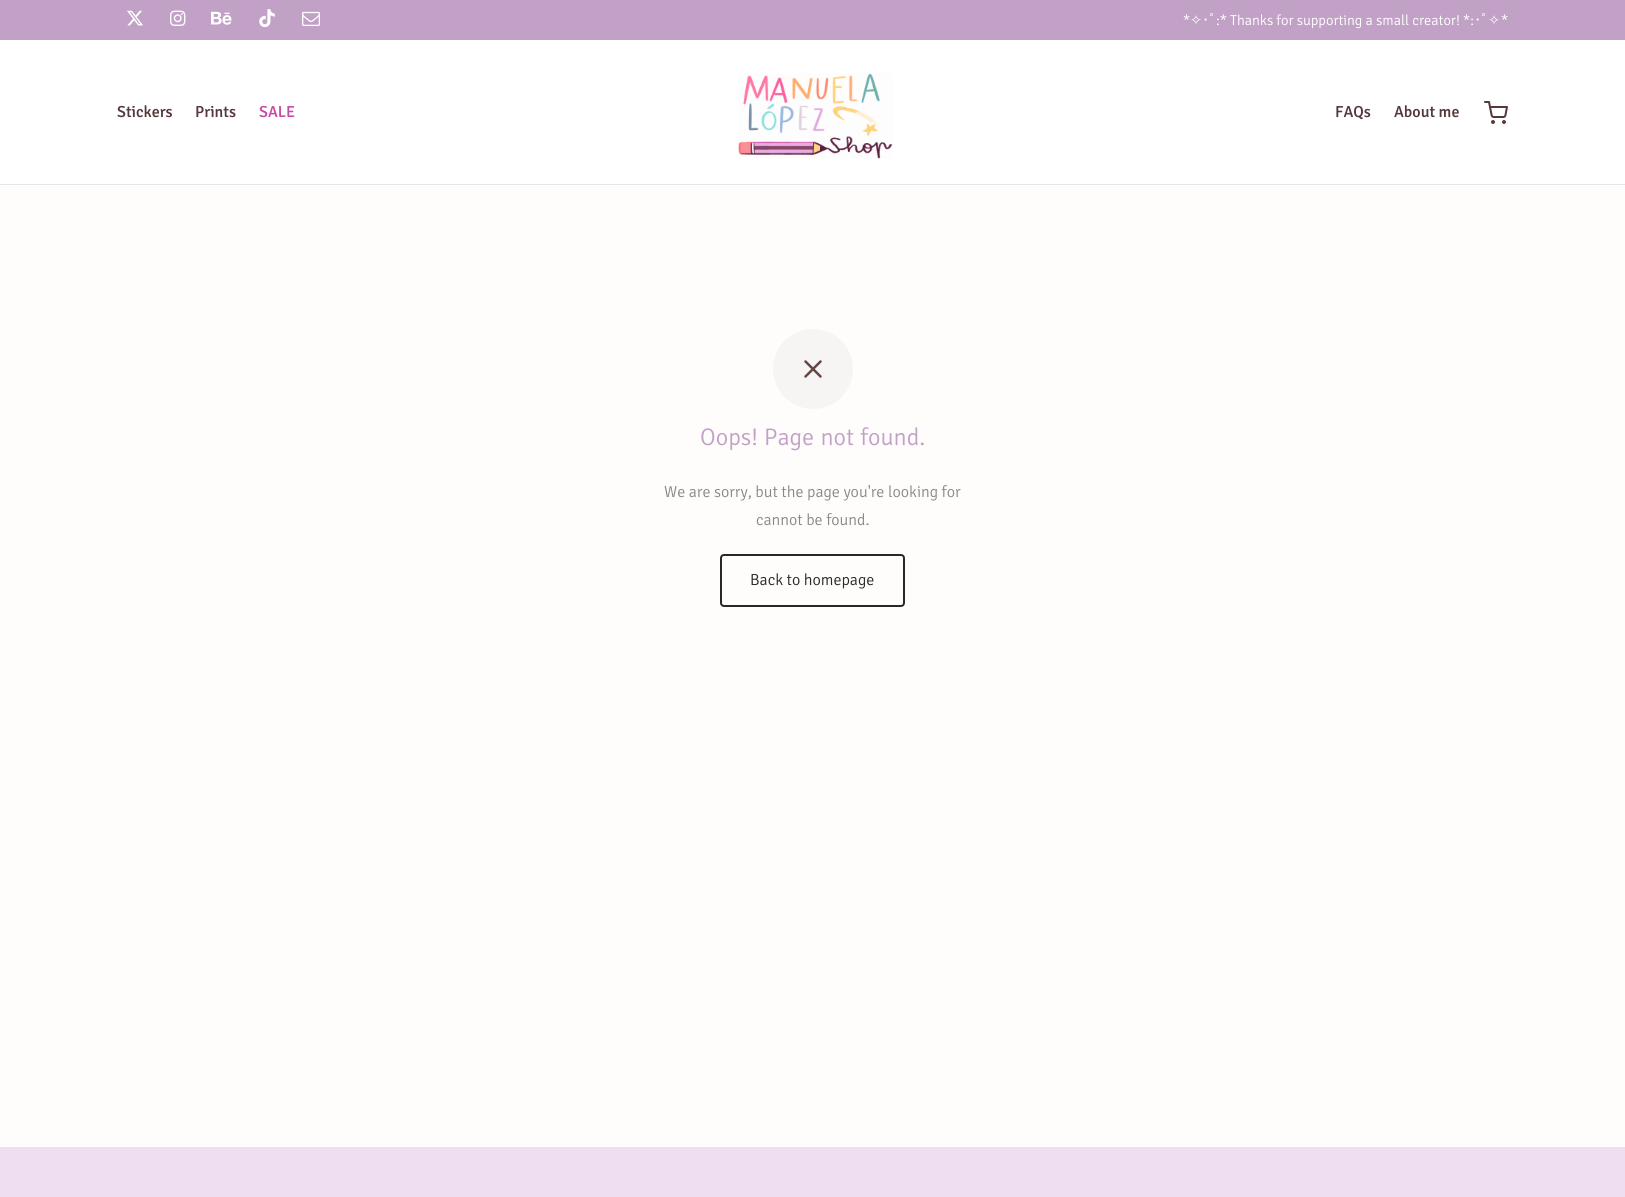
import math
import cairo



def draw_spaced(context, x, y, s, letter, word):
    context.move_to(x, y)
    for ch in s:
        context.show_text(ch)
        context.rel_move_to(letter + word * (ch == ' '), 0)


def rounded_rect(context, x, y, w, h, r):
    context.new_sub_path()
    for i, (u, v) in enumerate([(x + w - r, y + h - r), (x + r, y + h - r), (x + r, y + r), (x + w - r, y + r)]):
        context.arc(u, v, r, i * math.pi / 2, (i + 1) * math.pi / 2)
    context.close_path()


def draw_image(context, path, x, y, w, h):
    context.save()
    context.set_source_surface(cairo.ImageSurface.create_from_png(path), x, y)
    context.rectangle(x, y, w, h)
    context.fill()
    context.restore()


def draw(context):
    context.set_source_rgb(1, 252 / 255, 252 / 255)
    context.paint()
    context.set_source_rgb(193 / 255, 161 / 255, 197 / 255)
    context.rectangle(0, 0, 1625, 40)
    context.fill()
    draw_image(context, "images/1.png", 127, 10, 16, 16)
    draw_image(context, "images/2.png", 170, 10, 16, 16)
    draw_image(context, "images/3.png", 211, 11, 21, 14)
    draw_image(context, "images/4.png", 259, 9, 16, 19)
    draw_image(context, "images/5.png", 302, 11, 18, 15)
    context.set_source_rgb(1, 1, 1)
    context.rectangle(0, 40, 1625, 144)
    context.fill()
    draw_image(context, "images/6.png", 738, 73, 155, 86)
    draw_image(context, "images/7.png", 1484, 101, 24, 23)
    context.set_source_rgb(230 / 255, 230 / 255, 230 / 255)
    context.rectangle(0, 184, 1625, 1)
    context.fill()
    context.set_source_rgb(247 / 255, 244 / 255, 244 / 255)
    context.arc(813, 369, 40, 0, 2 * math.pi)
    context.fill()
    context.new_path()
    context.move_to(820.5, 361.5)
    context.line_to(805.5, 376.5)
    context.move_to(805.5, 361.5)
    context.line_to(820.5, 376.5)
    context.set_source_rgb(101 / 255, 71 / 255, 69 / 255)
    context.set_line_width(2.5)
    context.set_line_cap(cairo.LineCap.ROUND)
    context.set_line_join(cairo.LineJoin.ROUND)
    context.stroke()
    rounded_rect(context, 721, 555, 183, 51, 3)
    context.set_source_rgb(40 / 255, 40 / 255, 40 / 255)
    context.set_line_width(2)
    context.set_line_cap(cairo.LineCap.BUTT)
    context.set_line_join(cairo.LineJoin.MITER)
    context.stroke()
    context.set_source_rgb(239 / 255, 221 / 255, 241 / 255)
    context.rectangle(0, 1147, 1625, 50)
    context.fill()
    context.select_font_face("Signika Light")
    context.set_font_size(14.4)
    context.set_source_rgb(1, 1, 1)
    context.move_to(1183, 25)
    context.show_text("*")
    context.select_font_face("DejaVu Sans")
    context.move_to(1190, 25)
    context.show_text("✧")
    context.select_font_face("IPAGothic")
    context.move_to(1202, 25)
    context.show_text("･ﾟ")
    context.select_font_face("Signika Light")
    context.move_to(1216, 25)
    context.show_text(":* Thanks for supporting a small creator! *:")
    context.select_font_face("IPAGothic")
    context.move_to(1474, 25)
    context.show_text("･ﾟ")
    context.select_font_face("DejaVu Sans")
    context.move_to(1488, 25)
    context.show_text("✧")
    context.select_font_face("Signika Light")
    context.move_to(1501, 25)
    context.show_text("*")
    context.select_font_face("Signika Medium")
    context.set_font_size(16)
    context.set_source_rgb(85 / 255, 56 / 255, 60 / 255)
    context.move_to(117, 117)
    context.show_text("Stickers")
    context.move_to(195, 117)
    context.show_text("Prints")
    context.set_source_rgb(199 / 255, 75 / 255, 162 / 255)
    context.move_to(259, 117)
    context.show_text("SALE")
    context.set_source_rgb(85 / 255, 56 / 255, 60 / 255)
    context.move_to(1335, 117)
    context.show_text("FAQs")
    context.move_to(1394, 117)
    context.show_text("About me")
    context.select_font_face("Signika Light")
    context.set_font_size(24)
    context.set_source_rgb(193 / 255, 161 / 255, 197 / 255)
    draw_spaced(context, 700, 445, "Oops! Page not found.", 0, 1)
    context.set_font_size(16)
    context.set_source_rgb(136 / 255, 136 / 255, 136 / 255)
    context.move_to(664, 497)
    context.show_text("We are sorry, but the page you're looking for")
    context.move_to(756, 525)
    context.show_text("cannot be found.")
    context.set_source_rgb(40 / 255, 40 / 255, 40 / 255)
    context.move_to(750, 585)
    context.show_text("Back to homepage")


surface = cairo.ImageSurface(cairo.Format.RGB24, 1625, 1197)
context = cairo.Context(surface)
options = cairo.FontOptions()
options.set_hint_metrics(cairo.HintMetrics.OFF)
options.set_hint_style(cairo.HintStyle.NONE)
context.set_font_options(options)
context.set_miter_limit(4)
draw(context)
surface.write_to_png("out.png")
